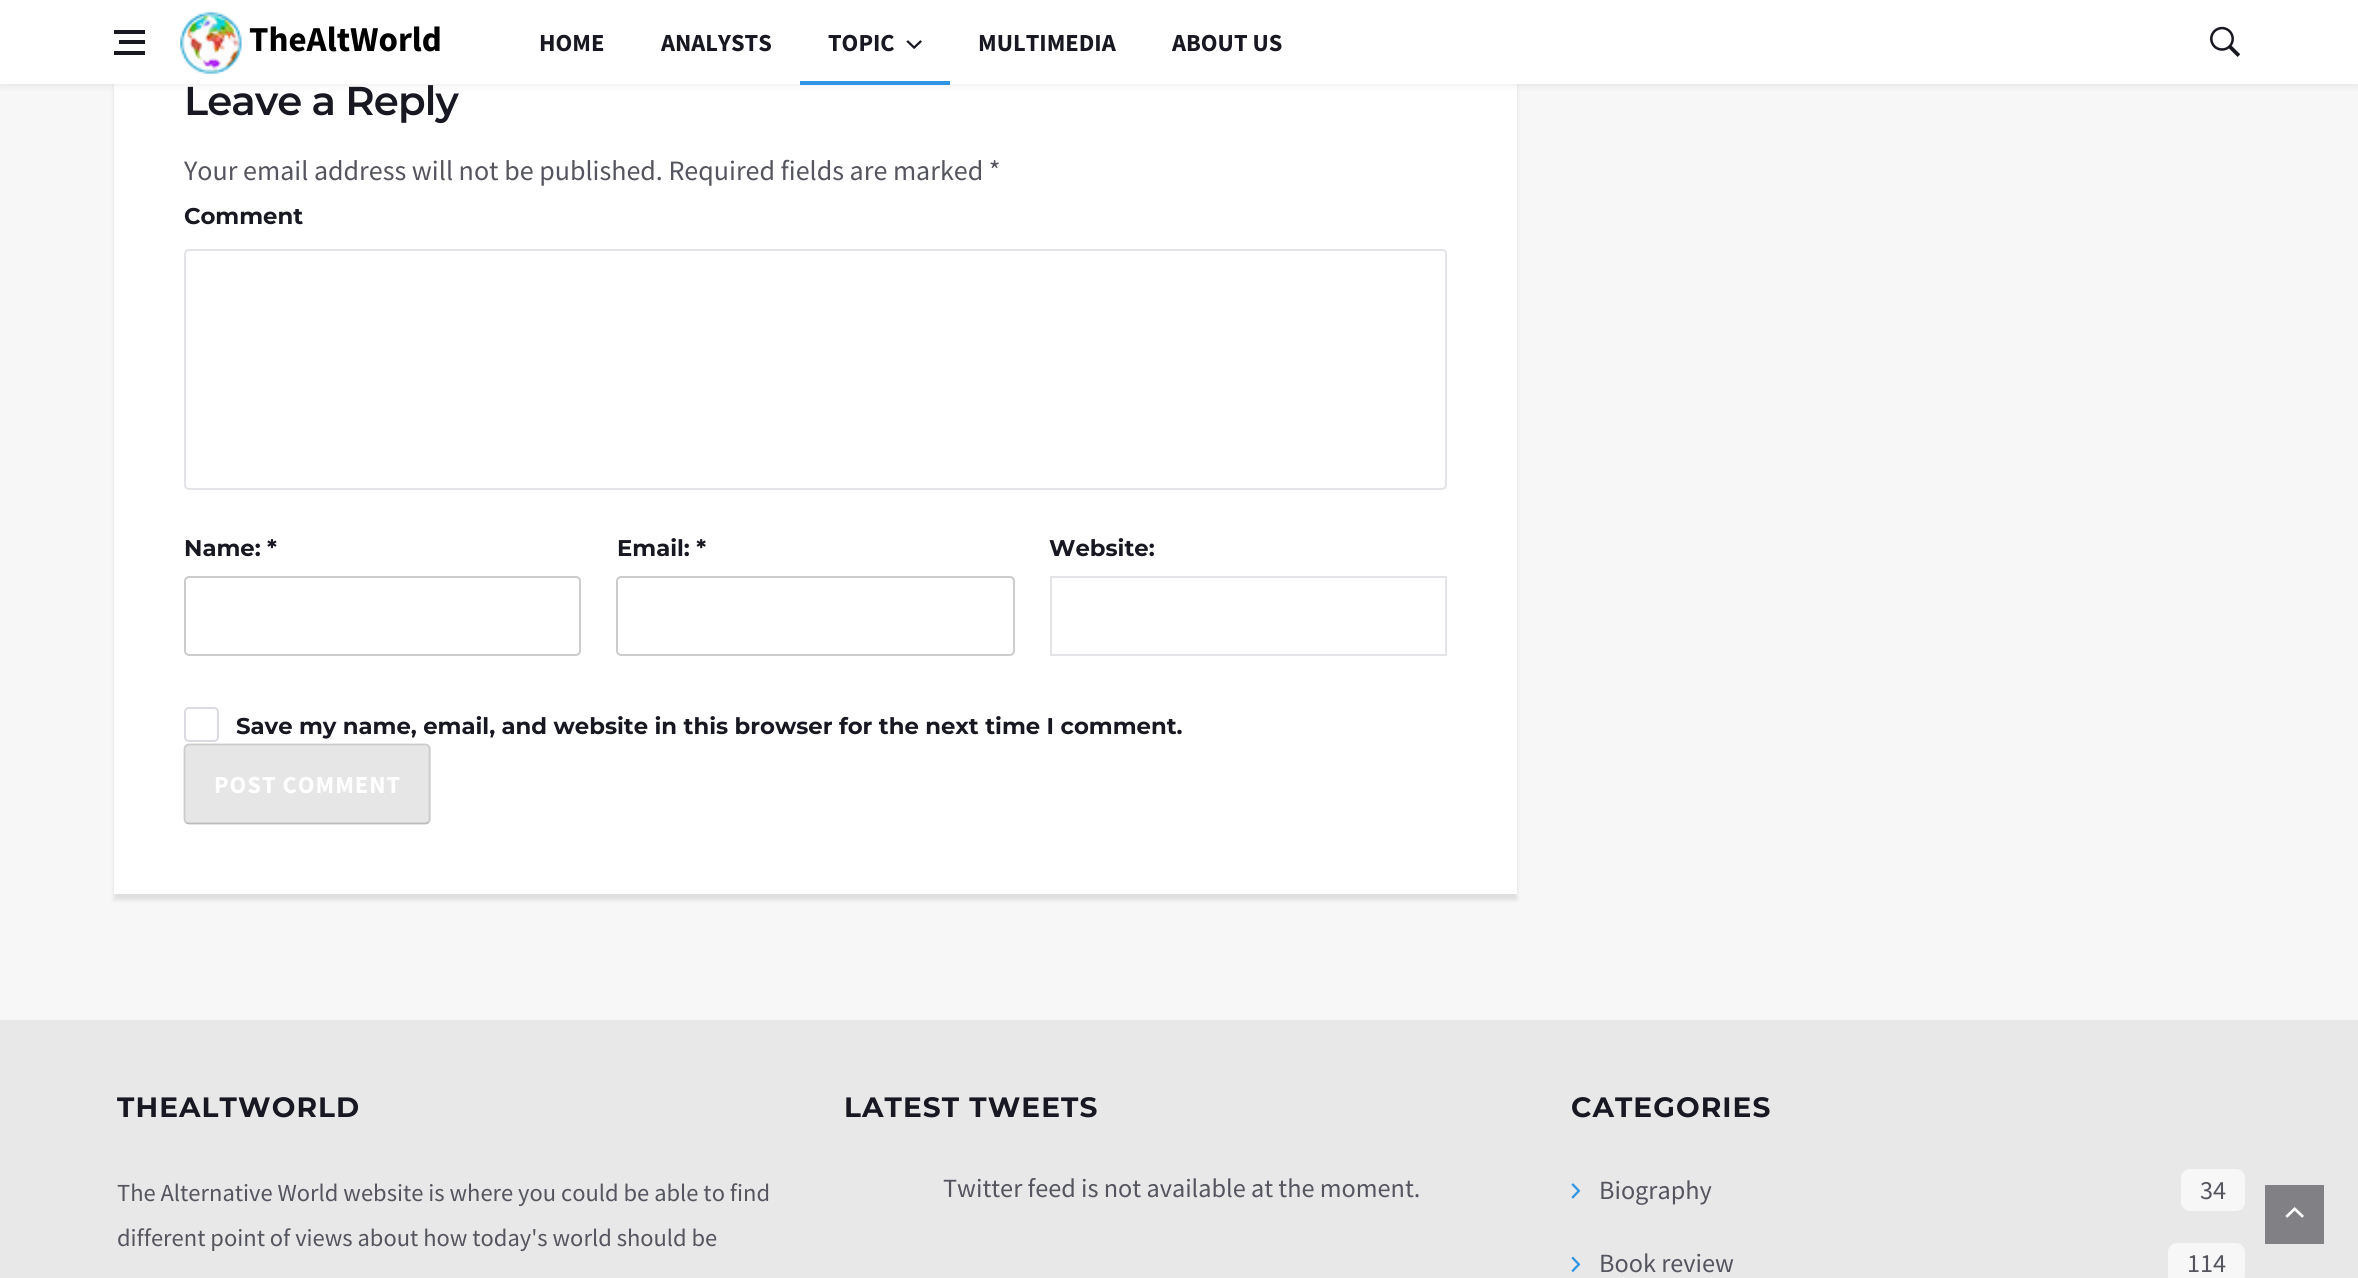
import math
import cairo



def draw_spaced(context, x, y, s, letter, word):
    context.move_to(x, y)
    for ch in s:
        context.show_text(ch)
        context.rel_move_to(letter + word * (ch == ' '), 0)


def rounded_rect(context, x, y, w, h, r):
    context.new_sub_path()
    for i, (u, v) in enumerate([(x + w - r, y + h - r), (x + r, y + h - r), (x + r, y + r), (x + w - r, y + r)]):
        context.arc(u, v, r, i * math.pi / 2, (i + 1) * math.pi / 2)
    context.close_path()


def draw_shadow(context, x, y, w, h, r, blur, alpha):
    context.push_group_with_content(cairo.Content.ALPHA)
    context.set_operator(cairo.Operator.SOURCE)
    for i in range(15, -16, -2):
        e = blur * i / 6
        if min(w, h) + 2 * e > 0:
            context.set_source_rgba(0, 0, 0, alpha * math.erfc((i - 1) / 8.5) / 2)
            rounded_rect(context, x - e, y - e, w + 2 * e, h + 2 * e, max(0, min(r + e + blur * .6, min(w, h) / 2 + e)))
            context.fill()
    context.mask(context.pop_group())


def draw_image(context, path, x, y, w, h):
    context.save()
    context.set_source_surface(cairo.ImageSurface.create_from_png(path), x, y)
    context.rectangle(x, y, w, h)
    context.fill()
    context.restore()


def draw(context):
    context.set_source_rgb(247 / 255, 247 / 255, 247 / 255)
    context.paint()
    context.set_source_rgb(0, 0, 0)
    draw_shadow(context, 114, -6, 1403, 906, 0, 2, 0.1)
    context.set_source_rgb(1, 1, 1)
    context.rectangle(114, 84, 1403, 810)
    context.fill()
    context.set_source_rgb(0, 0, 0)
    draw_shadow(context, 0, 0, 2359, 84, 0, 4.5, 0.1)
    context.set_source_rgb(1, 1, 1)
    context.rectangle(0, 0, 2358, 84)
    context.fill()
    context.set_source_rgb(23 / 255, 24 / 255, 33 / 255)
    context.rectangle(119, 40, 26, 4)
    context.fill()
    context.rectangle(114, 30, 31, 4)
    context.fill()
    context.rectangle(114, 51, 31, 4)
    context.fill()
    draw_image(context, "images/1.png", 180, 10, 62, 64)
    draw_image(context, "images/2.png", 906, 40, 16, 9)
    context.set_source_rgb(45 / 255, 149 / 255, 227 / 255)
    context.rectangle(800, 81, 150, 4)
    context.fill()
    draw_image(context, "images/3.png", 2210, 26, 31, 31)
    rounded_rect(context, 185, 250, 1261, 239, 4)
    context.set_source_rgb(227 / 255, 228 / 255, 232 / 255)
    context.stroke()
    rounded_rect(context, 185, 577, 395, 78, 4)
    context.set_source_rgb(204 / 255, 204 / 255, 204 / 255)
    context.stroke()
    rounded_rect(context, 617, 577, 397, 78, 4)
    context.stroke()
    context.rectangle(1051, 577, 395, 78)
    context.set_source_rgb(227 / 255, 228 / 255, 232 / 255)
    context.stroke()
    rounded_rect(context, 185, 708, 33, 33, 4)
    context.set_source_rgb(219 / 255, 220 / 255, 225 / 255)
    context.stroke()
    context.set_source_rgb(230 / 255, 230 / 255, 230 / 255)
    rounded_rect(context, 184, 744, 247, 80, 5)
    context.fill()
    context.new_path()
    context.move_to(428.5, 822)
    context.curve_to(427.5, 823, 426.5, 823.5, 425, 823.5)
    context.line_to(189, 823.5)
    context.curve_to(188, 823.5, 186.5, 823, 186, 822)
    context.set_source_rgb(187 / 255, 187 / 255, 187 / 255)
    context.set_line_width(1.8)
    context.stroke()
    context.new_path()
    context.move_to(186, 822)
    context.curve_to(185, 821.5, 184.5, 820, 184.5, 819)
    context.line_to(184.5, 749)
    context.curve_to(184.5, 748, 185, 746.5, 186, 746)
    context.curve_to(186.5, 745, 188, 744.5, 189, 744.5)
    context.line_to(425, 744.5)
    context.curve_to(426.5, 744.5, 427.5, 745, 428.5, 746)
    context.curve_to(429, 746.5, 429.5, 748, 429.5, 749)
    context.line_to(429.5, 819)
    context.curve_to(429.5, 820, 429, 821.5, 428.5, 822)
    context.set_source_rgb(204 / 255, 204 / 255, 204 / 255)
    context.stroke()
    context.set_source_rgb(232 / 255, 232 / 255, 232 / 255)
    context.rectangle(0, 1020, 2358, 258)
    context.fill()
    draw_image(context, "images/4.png", 1571, 1183, 10, 16)
    context.set_source_rgb(247 / 255, 247 / 255, 247 / 255)
    rounded_rect(context, 2181, 1169, 64, 42, 9)
    context.fill()
    draw_image(context, "images/5.png", 1571, 1256, 10, 16)
    rounded_rect(context, 2168, 1243, 77, 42, 9)
    context.fill()
    context.set_source_rgb(128 / 255, 128 / 255, 133 / 255)
    context.rectangle(2265, 1185, 59, 59)
    context.fill()
    draw_image(context, "images/6.png", 2285, 1207, 19, 11)
    context.select_font_face("Source Sans Pro", cairo.FontSlant.NORMAL, cairo.FontWeight.BOLD)
    context.set_font_size(35)
    context.set_source_rgb(0, 0, 0)
    context.move_to(249, 51)
    context.show_text("TheAltWorld")
    context.set_font_size(24.5)
    context.set_source_rgb(23 / 255, 24 / 255, 33 / 255)
    context.move_to(539, 51)
    context.show_text("HOME")
    context.move_to(661, 51)
    context.show_text("ANALYSTS")
    context.move_to(828, 51)
    context.show_text("TOPIC")
    context.move_to(978, 51)
    context.show_text("MULTIMEDIA")
    context.move_to(1172, 51)
    context.show_text("ABOUT US")
    context.select_font_face("Montserrat SemiBold")
    context.set_font_size(40.25)
    draw_spaced(context, 184, 115, "Leave a Reply", -0.9, 0)
    context.select_font_face("Source Sans Pro")
    context.set_font_size(28)
    context.set_source_rgb(84 / 255, 85 / 255, 94 / 255)
    context.move_to(184, 180)
    context.show_text("Your email address will not be published. Required fields are marked *")
    context.select_font_face("Montserrat", cairo.FontSlant.NORMAL, cairo.FontWeight.BOLD)
    context.set_font_size(22.75)
    context.set_source_rgb(23 / 255, 24 / 255, 33 / 255)
    context.move_to(184, 224)
    context.show_text("Comment")
    context.move_to(184, 556)
    context.show_text("Name: *")
    context.move_to(617, 556)
    context.show_text("Email: *")
    context.move_to(1049, 556)
    context.show_text("Website:")
    context.move_to(236, 734)
    context.show_text("Save my name, email, and website in this browser for the next time I comment.")
    context.select_font_face("Source Sans Pro", cairo.FontSlant.NORMAL, cairo.FontWeight.BOLD)
    context.set_font_size(24.5)
    context.set_source_rgb(1, 1, 1)
    draw_spaced(context, 214, 793, "POST COMMENT", 1, 0)
    context.select_font_face("Montserrat", cairo.FontSlant.NORMAL, cairo.FontWeight.BOLD)
    context.set_font_size(28)
    context.set_source_rgb(23 / 255, 24 / 255, 33 / 255)
    draw_spaced(context, 117, 1117, "THEALTWORLD", 1.1, 0)
    context.select_font_face("Source Sans Pro")
    context.set_font_size(24.5)
    context.set_source_rgb(84 / 255, 85 / 255, 94 / 255)
    context.move_to(117, 1201)
    context.show_text("The Alternative World website is where you could be able to find")
    context.move_to(117, 1246)
    context.show_text("different point of views about how today's world should be")
    context.select_font_face("Montserrat", cairo.FontSlant.NORMAL, cairo.FontWeight.BOLD)
    context.set_font_size(28)
    context.set_source_rgb(23 / 255, 24 / 255, 33 / 255)
    draw_spaced(context, 844, 1117, "LATEST TWEETS", 1.1, 0)
    context.select_font_face("Source Sans Pro")
    context.set_font_size(26.25)
    context.set_source_rgb(84 / 255, 85 / 255, 94 / 255)
    context.move_to(943, 1197)
    context.show_text("Twitter feed is not available at the moment.")
    context.select_font_face("Montserrat", cairo.FontSlant.NORMAL, cairo.FontWeight.BOLD)
    context.set_font_size(28)
    context.set_source_rgb(23 / 255, 24 / 255, 33 / 255)
    draw_spaced(context, 1571, 1117, "CATEGORIES", 1.1, 0)
    context.select_font_face("Source Sans Pro")
    context.set_font_size(26.25)
    context.set_source_rgb(84 / 255, 85 / 255, 94 / 255)
    context.move_to(1599, 1199)
    context.show_text("Biography")
    context.move_to(2200, 1199)
    context.show_text("34")
    context.move_to(1599, 1272)
    context.show_text("Book review")
    context.move_to(2187, 1272)
    context.show_text("114")


surface = cairo.ImageSurface(cairo.Format.RGB24, 2358, 1278)
context = cairo.Context(surface)
options = cairo.FontOptions()
options.set_hint_metrics(cairo.HintMetrics.OFF)
options.set_hint_style(cairo.HintStyle.NONE)
context.set_font_options(options)
context.set_miter_limit(4)
draw(context)
surface.write_to_png("out.png")
